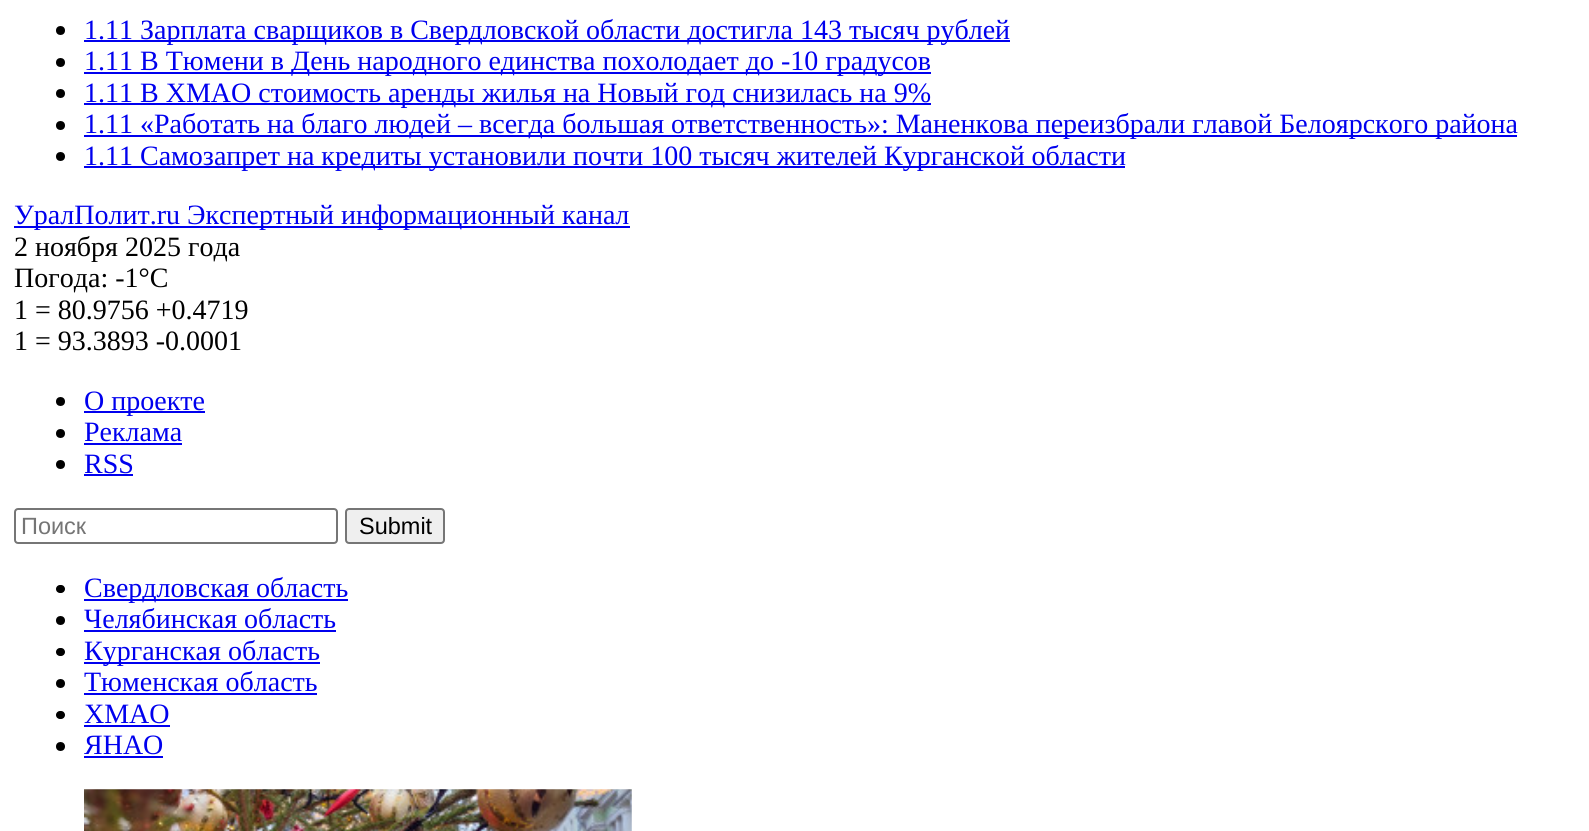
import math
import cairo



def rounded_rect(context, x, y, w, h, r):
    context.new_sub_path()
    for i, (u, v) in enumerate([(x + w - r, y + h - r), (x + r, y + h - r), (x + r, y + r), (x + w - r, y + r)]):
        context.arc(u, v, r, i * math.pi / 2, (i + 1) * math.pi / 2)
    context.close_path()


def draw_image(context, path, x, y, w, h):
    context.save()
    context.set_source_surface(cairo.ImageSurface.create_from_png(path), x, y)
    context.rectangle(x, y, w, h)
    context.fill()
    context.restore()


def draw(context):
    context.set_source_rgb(1, 1, 1)
    context.paint()
    context.set_source_rgb(0, 0, 0)
    context.arc(60.5, 30.5, 4.5, 0, 2 * math.pi)
    context.fill()
    context.set_source_rgb(0, 0, 238 / 255)
    context.rectangle(84, 40, 926, 2)
    context.fill()
    context.set_source_rgb(0, 0, 0)
    context.arc(60.5, 62.5, 4.5, 0, 2 * math.pi)
    context.fill()
    context.set_source_rgb(0, 0, 238 / 255)
    context.rectangle(84, 72, 847, 2)
    context.fill()
    context.set_source_rgb(0, 0, 0)
    context.arc(60.5, 93.5, 4.5, 0, 2 * math.pi)
    context.fill()
    context.set_source_rgb(0, 0, 238 / 255)
    context.rectangle(84, 103, 847, 2)
    context.fill()
    context.set_source_rgb(0, 0, 0)
    context.arc(60.5, 125.5, 4.5, 0, 2 * math.pi)
    context.fill()
    context.set_source_rgb(0, 0, 238 / 255)
    context.rectangle(84, 135, 1433, 2)
    context.fill()
    context.set_source_rgb(0, 0, 0)
    context.arc(60.5, 156.5, 4.5, 0, 2 * math.pi)
    context.fill()
    context.set_source_rgb(0, 0, 238 / 255)
    context.rectangle(84, 166, 1041, 2)
    context.fill()
    context.rectangle(14, 226, 616, 2)
    context.fill()
    context.set_source_rgb(0, 0, 0)
    context.arc(60.5, 401.5, 4.5, 0, 2 * math.pi)
    context.fill()
    context.set_source_rgb(0, 0, 238 / 255)
    context.rectangle(84, 411, 121, 2)
    context.fill()
    context.set_source_rgb(0, 0, 0)
    context.arc(60.5, 433.5, 4.5, 0, 2 * math.pi)
    context.fill()
    context.set_source_rgb(0, 0, 238 / 255)
    context.rectangle(84, 443, 98, 2)
    context.fill()
    context.set_source_rgb(0, 0, 0)
    context.arc(60.5, 464.5, 4.5, 0, 2 * math.pi)
    context.fill()
    context.set_source_rgb(0, 0, 238 / 255)
    context.rectangle(84, 474, 49, 2)
    context.fill()
    rounded_rect(context, 15, 509, 322, 34, 3)
    context.set_source_rgb(118 / 255, 118 / 255, 118 / 255)
    context.stroke()
    context.set_source_rgb(239 / 255, 239 / 255, 239 / 255)
    rounded_rect(context, 346, 509, 98, 34, 3)
    context.fill_preserve()
    context.set_source_rgb(118 / 255, 118 / 255, 118 / 255)
    context.stroke()
    context.set_source_rgb(0, 0, 0)
    rounded_rect(context, 56, 585, 9, 8, 4)
    context.fill()
    context.set_source_rgb(0, 0, 238 / 255)
    context.rectangle(84, 599, 264, 2)
    context.fill()
    context.set_source_rgb(0, 0, 0)
    context.arc(60.5, 620.5, 4.5, 0, 2 * math.pi)
    context.fill()
    context.set_source_rgb(0, 0, 238 / 255)
    context.rectangle(84, 630, 252, 2)
    context.fill()
    context.set_source_rgb(0, 0, 0)
    rounded_rect(context, 56, 648, 9, 8, 4)
    context.fill()
    context.set_source_rgb(0, 0, 238 / 255)
    context.rectangle(84, 662, 236, 2)
    context.fill()
    context.set_source_rgb(0, 0, 0)
    context.arc(60.5, 683.5, 4.5, 0, 2 * math.pi)
    context.fill()
    context.set_source_rgb(0, 0, 238 / 255)
    context.rectangle(84, 693, 233, 2)
    context.fill()
    context.set_source_rgb(0, 0, 0)
    rounded_rect(context, 56, 711, 9, 8, 4)
    context.fill()
    context.set_source_rgb(0, 0, 238 / 255)
    context.rectangle(84, 725, 86, 2)
    context.fill()
    context.set_source_rgb(0, 0, 0)
    context.arc(60.5, 746.5, 4.5, 0, 2 * math.pi)
    context.fill()
    context.set_source_rgb(0, 0, 238 / 255)
    context.rectangle(84, 756, 79, 2)
    context.fill()
    draw_image(context, "images/1.png", 84, 789, 548, 42)
    context.select_font_face("Liberation Serif")
    context.set_font_size(28)
    context.move_to(84, 39)
    context.show_text("1.11 Зарплата сварщиков в Свердловской области достигла 143 тысяч рублей")
    context.move_to(84, 70)
    context.show_text("1.11 В Тюмени в День народного единства похолодает до -10 градусов")
    context.move_to(84, 102)
    context.show_text("1.11 В ХМАО стоимость аренды жилья на Новый год снизилась на 9%")
    context.move_to(84, 133)
    context.show_text("1.11 «Работать на благо людей – всегда большая ответственность»: Маненкова переизбрали главой Белоярского района")
    context.move_to(84, 165)
    context.show_text("1.11 Самозапрет на кредиты установили почти 100 тысяч жителей Курганской области")
    context.move_to(14, 224)
    context.show_text("УралПолит.ru Экспертный информационный канал")
    context.set_source_rgb(0, 0, 0)
    context.move_to(14, 256)
    context.show_text("2 ноября 2025 года")
    context.move_to(14, 287)
    context.show_text("Погода: -1°С")
    context.move_to(14, 319)
    context.show_text("1 = 80.9756 +0.4719")
    context.move_to(14, 350)
    context.show_text("1 = 93.3893 -0.0001")
    context.set_source_rgb(0, 0, 238 / 255)
    context.move_to(84, 410)
    context.show_text("О проекте")
    context.move_to(84, 441)
    context.show_text("Реклама")
    context.move_to(84, 473)
    context.show_text("RSS")
    context.select_font_face("Liberation Sans")
    context.set_font_size(23.5)
    context.set_source_rgb(117 / 255, 117 / 255, 117 / 255)
    context.move_to(21, 534)
    context.show_text("Поиск")
    context.set_source_rgb(0, 0, 0)
    context.move_to(359, 534)
    context.show_text("Submit")
    context.select_font_face("Liberation Serif")
    context.set_font_size(28)
    context.set_source_rgb(0, 0, 238 / 255)
    context.move_to(84, 597)
    context.show_text("Свердловская область")
    context.move_to(84, 628)
    context.show_text("Челябинская область")
    context.move_to(84, 660)
    context.show_text("Курганская область")
    context.move_to(84, 691)
    context.show_text("Тюменская область")
    context.move_to(84, 723)
    context.show_text("ХМАО")
    context.move_to(84, 754)
    context.show_text("ЯНАО")


surface = cairo.ImageSurface(cairo.Format.RGB24, 1589, 831)
context = cairo.Context(surface)
options = cairo.FontOptions()
options.set_hint_metrics(cairo.HintMetrics.OFF)
options.set_hint_style(cairo.HintStyle.NONE)
context.set_font_options(options)
context.set_miter_limit(4)
draw(context)
surface.write_to_png("out.png")
